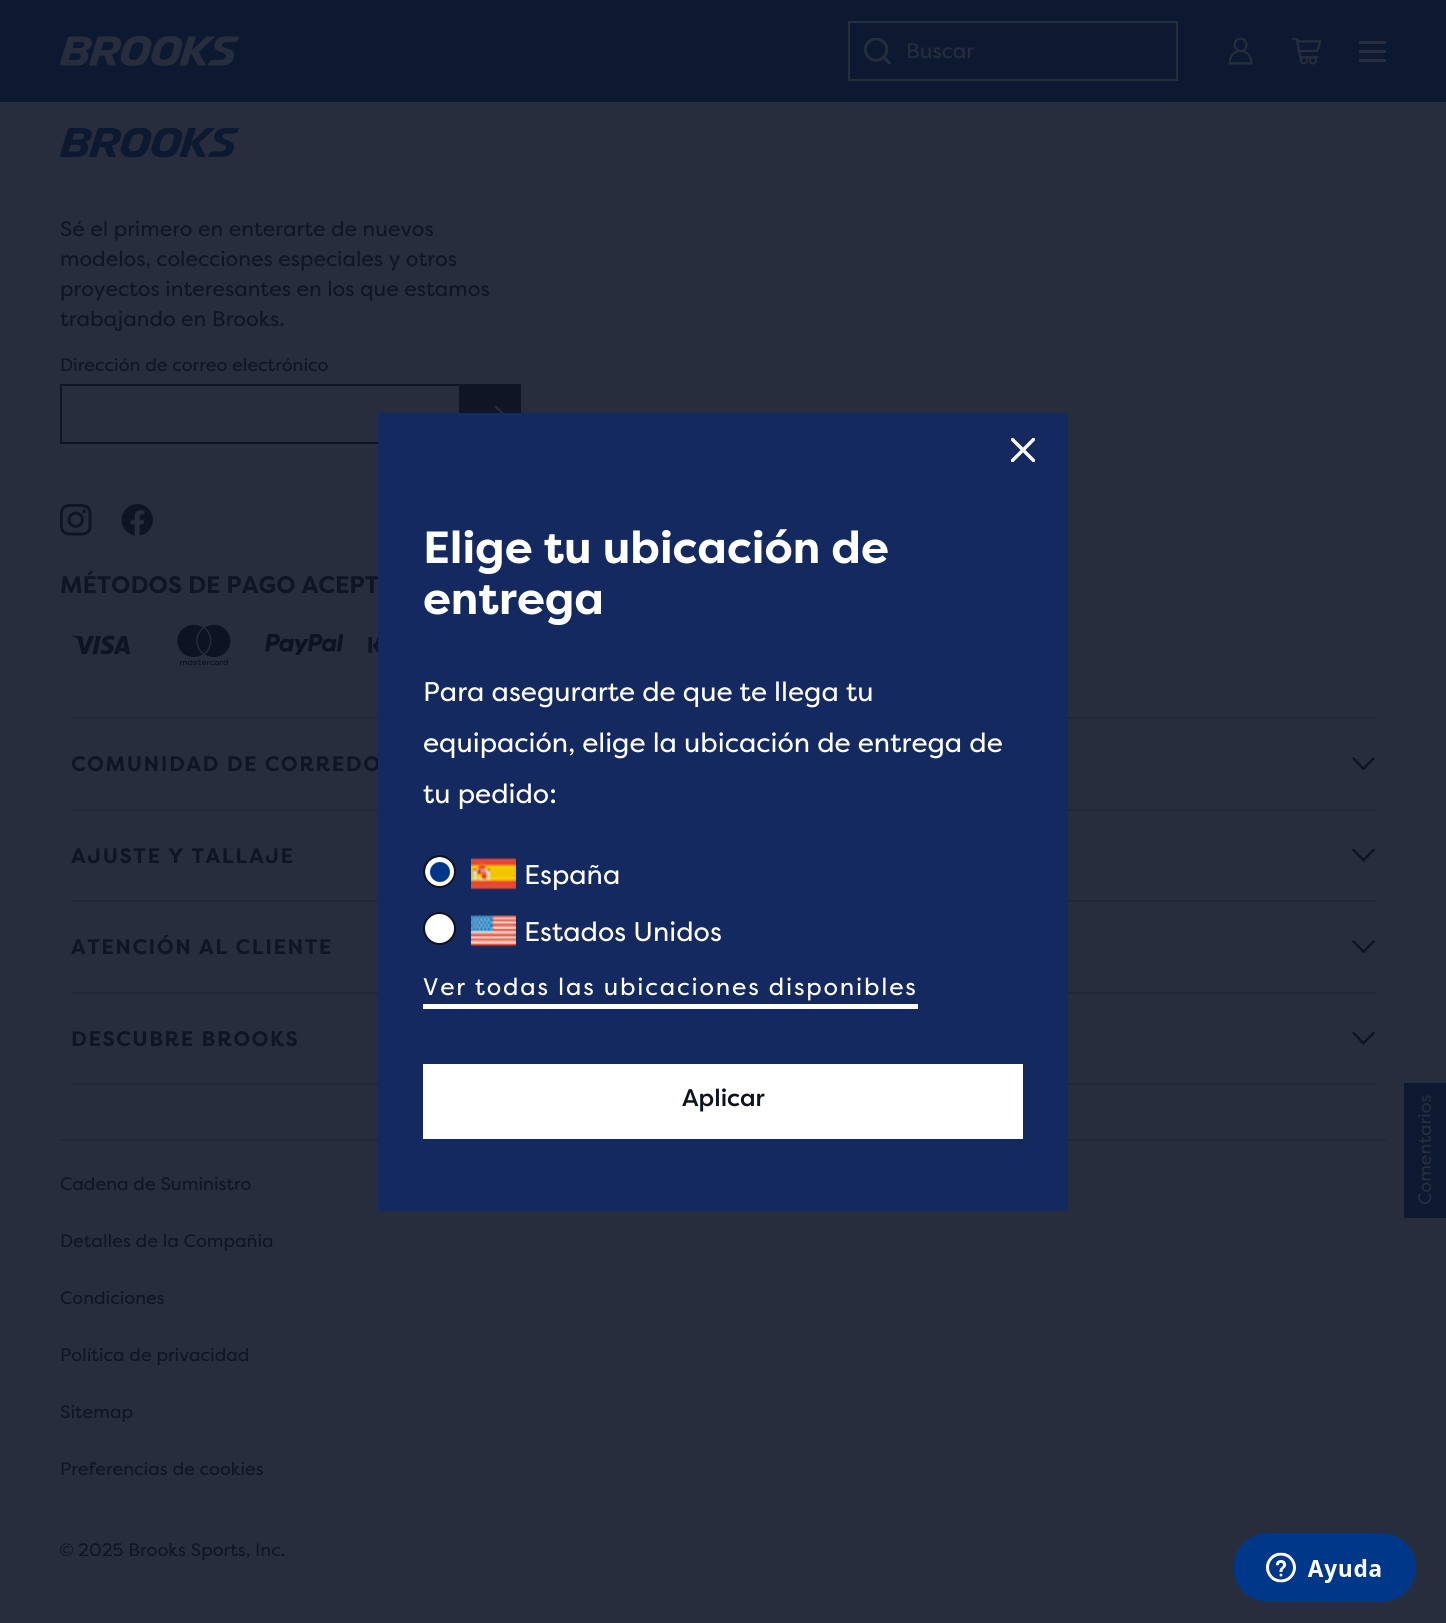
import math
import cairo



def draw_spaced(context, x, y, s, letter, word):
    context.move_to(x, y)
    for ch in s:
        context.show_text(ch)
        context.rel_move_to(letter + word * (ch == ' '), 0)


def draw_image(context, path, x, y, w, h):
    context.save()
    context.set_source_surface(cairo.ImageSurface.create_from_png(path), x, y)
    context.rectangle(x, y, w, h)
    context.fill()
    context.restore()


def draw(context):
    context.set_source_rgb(39 / 255, 45 / 255, 60 / 255)
    context.paint()
    context.set_source_rgb(13 / 255, 25 / 255, 48 / 255)
    context.rectangle(0, 0, 1446, 102)
    context.fill()
    draw_image(context, "images/1.png", 60, 36, 180, 30)
    context.rectangle(849, 22, 328, 58)
    context.set_source_rgb(39 / 255, 45 / 255, 60 / 255)
    context.stroke()
    draw_image(context, "images/2.png", 864, 38, 27, 27)
    draw_image(context, "images/3.png", 1229, 38, 24, 27)
    draw_image(context, "images/4.png", 1292, 38, 30, 27)
    context.rectangle(1359, 41, 27, 3)
    context.fill()
    context.rectangle(1359, 50, 27, 3)
    context.fill()
    context.rectangle(1359, 59, 27, 3)
    context.fill()
    draw_image(context, "images/5.png", 60, 128, 180, 30)
    context.rectangle(61, 385, 399, 58)
    context.set_source_rgb(15 / 255, 21 / 255, 37 / 255)
    context.stroke()
    context.rectangle(461, 384, 60, 29)
    context.fill()
    context.set_source_rgb(39 / 255, 45 / 255, 60 / 255)
    context.new_path()
    context.move_to(496, 405.5)
    context.line_to(494.5, 407)
    context.line_to(502, 414)
    context.line_to(474, 414)
    context.line_to(474, 415.5)
    context.line_to(502, 415.5)
    context.line_to(494.5, 422.5)
    context.line_to(496, 424)
    context.line_to(506, 415)
    context.close_path()
    context.fill()
    draw_image(context, "images/6.png", 60, 504, 32, 32)
    draw_image(context, "images/7.png", 121, 504, 32, 32)
    draw_image(context, "images/8.png", 72, 635, 58, 20)
    draw_image(context, "images/9.png", 177, 624, 54, 42)
    draw_image(context, "images/10.png", 265, 634, 78, 21)
    draw_image(context, "images/11.png", 368, 637, 10, 16)
    context.set_source_rgb(34 / 255, 40 / 255, 55 / 255)
    context.rectangle(71, 1083, 1305, 2)
    context.fill()
    context.rectangle(71, 717, 1305, 2)
    context.fill()
    context.set_source_rgb(13 / 255, 19 / 255, 34 / 255)
    context.new_path()
    context.move_to(1373.5, 757)
    context.line_to(1375, 758.5)
    context.line_to(1363.5, 770.5)
    context.line_to(1352, 758.5)
    context.line_to(1353.5, 757)
    context.line_to(1363.5, 767)
    context.close_path()
    context.fill()
    context.set_source_rgb(34 / 255, 40 / 255, 55 / 255)
    context.rectangle(71, 809, 1305, 2)
    context.fill()
    context.set_source_rgb(13 / 255, 19 / 255, 34 / 255)
    context.new_path()
    context.move_to(1373.5, 848.5)
    context.line_to(1375, 850)
    context.line_to(1363.5, 862)
    context.line_to(1352, 850)
    context.line_to(1353.5, 848.5)
    context.line_to(1363.5, 858.5)
    context.close_path()
    context.fill()
    context.set_source_rgb(34 / 255, 40 / 255, 55 / 255)
    context.rectangle(71, 900, 1305, 2)
    context.fill()
    context.set_source_rgb(13 / 255, 19 / 255, 34 / 255)
    context.new_path()
    context.move_to(1373.5, 940)
    context.line_to(1375, 941.5)
    context.line_to(1363.5, 953.5)
    context.line_to(1352, 941.5)
    context.line_to(1353.5, 940)
    context.line_to(1363.5, 950)
    context.close_path()
    context.fill()
    context.set_source_rgb(34 / 255, 40 / 255, 55 / 255)
    context.rectangle(71, 992, 1305, 2)
    context.fill()
    context.set_source_rgb(13 / 255, 19 / 255, 34 / 255)
    context.new_path()
    context.move_to(1373.5, 1031.5)
    context.line_to(1375, 1033)
    context.line_to(1363.5, 1045)
    context.line_to(1352, 1033)
    context.line_to(1353.5, 1031.5)
    context.line_to(1363.5, 1041.5)
    context.close_path()
    context.fill()
    context.set_source_rgb(34 / 255, 40 / 255, 55 / 255)
    context.rectangle(60, 1139, 1326, 2)
    context.fill()
    context.set_source_rgb(13 / 255, 25 / 255, 48 / 255)
    context.rectangle(1404, 1083, 42, 135)
    context.fill()
    draw_image(context, "images/14.png", 1233, 1533, 183, 69)
    context.select_font_face("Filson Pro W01")
    context.set_font_size(21)
    context.set_source_rgb(39 / 255, 45 / 255, 60 / 255)
    context.move_to(906, 58)
    context.show_text("Buscar")
    context.set_source_rgb(15 / 255, 21 / 255, 37 / 255)
    context.move_to(60, 236)
    context.show_text("Sé el primero en enterarte de nuevos")
    context.move_to(60, 266)
    context.show_text("modelos, colecciones especiales y otros")
    context.move_to(60, 296)
    context.show_text("proyectos interesantes en los que estamos")
    context.move_to(60, 326)
    context.show_text("trabajando en Brooks.")
    context.set_font_size(18)
    context.move_to(60, 371)
    context.show_text("Dirección de correo electrónico")
    context.select_font_face("Filson Pro W01", cairo.FontSlant.NORMAL, cairo.FontWeight.BOLD)
    context.set_font_size(24)
    context.move_to(60, 593)
    context.show_text("MÉTODOS DE PAGO ACEPT")
    context.set_font_size(21)
    draw_spaced(context, 71, 771, "COMUNIDAD DE CORREDO", 1.5, 0)
    draw_spaced(context, 71, 863, "AJUSTE Y TALLAJE", 1.5, 0)
    draw_spaced(context, 71, 954, "ATENCIÓN AL CLIENTE", 1.5, 0)
    draw_spaced(context, 71, 1046, "DESCUBRE BROOKS", 1.5, 0)
    context.select_font_face("Filson Pro W01")
    context.set_font_size(18)
    context.move_to(60, 1190)
    context.show_text("Cadena de Suministro")
    context.move_to(60, 1247)
    context.show_text("Detalles de la Compañia")
    context.move_to(60, 1304)
    context.show_text("Condiciones")
    context.move_to(60, 1361)
    context.show_text("Política de privacidad")
    context.move_to(60, 1418)
    context.show_text("Sitemap")
    context.move_to(60, 1475)
    context.show_text("Preferencias de cookies")
    context.select_font_face("Liberation Sans")
    context.move_to(60, 1556)
    context.show_text("©")
    context.select_font_face("Filson Pro W01")
    context.move_to(78, 1556)
    context.show_text("2025 Brooks Sports, Inc.")
    context.set_source_rgb(20 / 255, 41 / 255, 95 / 255)
    context.rectangle(378, 413, 690, 798)
    context.fill()
    context.save()
    context.rectangle(1011, 438, 24, 24)
    context.clip()
    context.new_path()
    context.move_to(1012.5, 439.5)
    context.line_to(1033.5, 460.5)
    context.move_to(1033.5, 439.5)
    context.line_to(1012.5, 460.5)
    context.set_source_rgb(1, 1, 1)
    context.set_line_width(3.4)
    context.set_line_cap(cairo.LineCap.ROUND)
    context.set_line_join(cairo.LineJoin.ROUND)
    context.stroke()
    context.restore()
    context.select_font_face("Filson Pro W01", cairo.FontSlant.NORMAL, cairo.FontWeight.BOLD)
    context.set_font_size(45)
    context.set_source_rgb(1, 1, 1)
    context.move_to(423, 563)
    context.show_text("Elige tu ubicación de")
    context.move_to(423, 614)
    context.show_text("entrega")
    context.select_font_face("Filson Pro W01")
    context.set_font_size(27)
    context.move_to(423, 701)
    context.show_text("Para asegurarte de que te llega tu")
    context.move_to(423, 752)
    context.show_text("equipación, elige la ubicación de entrega de")
    context.move_to(423, 803)
    context.show_text("tu pedido:")
    context.set_source_rgb(0, 55 / 255, 137 / 255)
    context.new_path()
    context.arc(439.5, 871.5, 16.5, 0, 2 * math.pi)
    context.fill()
    context.arc(440, 872, 12.5, 0, 2 * math.pi)
    context.set_source_rgb(1, 1, 1)
    context.set_line_width(5)
    context.stroke()
    context.arc(439.5, 871.5, 15.5, 0, 2 * math.pi)
    context.set_source_rgb(14 / 255, 19 / 255, 31 / 255)
    context.set_line_width(2)
    context.stroke()
    draw_image(context, "images/12.png", 471, 858, 45, 32)
    context.set_source_rgb(1, 1, 1)
    context.move_to(524, 884)
    context.show_text("España")
    context.new_path()
    context.arc(439.5, 928.5, 15.5, 0, 2 * math.pi)
    context.fill_preserve()
    context.set_source_rgb(14 / 255, 19 / 255, 31 / 255)
    context.stroke()
    draw_image(context, "images/13.png", 471, 915, 45, 32)
    context.set_source_rgb(1, 1, 1)
    context.move_to(524, 941)
    context.show_text("Estados Unidos")
    context.set_font_size(24)
    draw_spaced(context, 423, 995, "Ver todas las ubicaciones disponibles", 1.8, 0)
    context.rectangle(423, 1004, 495, 5)
    context.fill()
    context.rectangle(423, 1064, 600, 75)
    context.fill()
    context.select_font_face("Filson Pro W01 Medium")
    context.set_source_rgb(14 / 255, 19 / 255, 31 / 255)
    context.move_to(682, 1106)
    context.show_text("Aplicar")
    context.select_font_face("Filson Pro W01")
    context.set_font_size(18)
    context.set_source_rgb(39 / 255, 45 / 255, 60 / 255)
    context.save()
    context.translate(1431, 1205)
    context.rotate(-90 * math.pi / 180)
    context.move_to(0, 0)
    context.show_text("Comentarios")
    context.restore()


surface = cairo.ImageSurface(cairo.Format.RGB24, 1446, 1623)
context = cairo.Context(surface)
options = cairo.FontOptions()
options.set_hint_metrics(cairo.HintMetrics.OFF)
options.set_hint_style(cairo.HintStyle.NONE)
context.set_font_options(options)
context.set_miter_limit(4)
draw(context)
surface.write_to_png("out.png")
